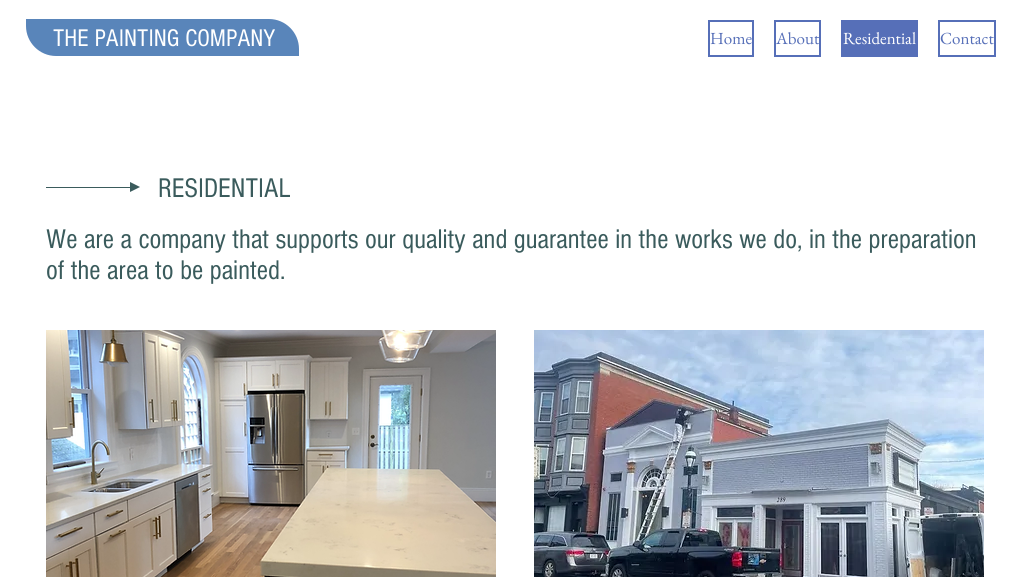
import math
import cairo



def draw_image(context, path, x, y, w, h):
    context.save()
    context.set_source_surface(cairo.ImageSurface.create_from_png(path), x, y)
    context.rectangle(x, y, w, h)
    context.fill()
    context.restore()


def draw(context):
    context.set_source_rgb(1, 1, 1)
    context.paint()
    context.set_source_rgb(89 / 255, 133 / 255, 186 / 255)
    context.new_path()
    context.move_to(26, 19)
    context.line_to(269, 19)
    context.curve_to(285.5, 19, 299, 32.5, 299, 49)
    context.line_to(299, 56)
    context.line_to(56, 56)
    context.curve_to(39.5, 56, 26, 42.5, 26, 26)
    context.close_path()
    context.fill()
    context.rectangle(709, 21, 44, 35)
    context.set_source_rgb(86 / 255, 111 / 255, 184 / 255)
    context.stroke()
    context.rectangle(775, 21, 45, 35)
    context.stroke()
    context.rectangle(841, 20, 77, 37)
    context.fill()
    context.rectangle(939, 21, 56, 35)
    context.stroke()
    context.set_source_rgb(58 / 255, 91 / 255, 92 / 255)
    context.rectangle(46, 187, 89, 1)
    context.fill()
    context.new_path()
    context.move_to(130, 192)
    context.line_to(130, 182)
    context.line_to(140, 187)
    context.close_path()
    context.fill()
    draw_image(context, "images/1.png", 46, 330, 450, 247)
    draw_image(context, "images/2.png", 534, 330, 450, 247)
    context.select_font_face("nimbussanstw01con")
    context.set_font_size(25)
    context.set_source_rgb(1, 1, 1)
    context.move_to(53, 46)
    context.show_text("THE PAINTING COMPANY")
    context.select_font_face("EB Garamond")
    context.set_font_size(17)
    context.set_source_rgb(86 / 255, 111 / 255, 184 / 255)
    context.move_to(710, 44)
    context.show_text("Home")
    context.move_to(776, 44)
    context.show_text("About")
    context.set_source_rgb(1, 1, 1)
    context.move_to(843, 44)
    context.show_text("Residential")
    context.set_source_rgb(86 / 255, 111 / 255, 184 / 255)
    context.move_to(940, 44)
    context.show_text("Contact")
    context.select_font_face("nimbussanstw01con")
    context.set_font_size(28)
    context.set_source_rgb(58 / 255, 91 / 255, 92 / 255)
    context.move_to(158, 197)
    context.show_text("RESIDENTIAL")
    context.move_to(46, 248)
    context.show_text("We are a company that supports our quality and guarantee in the works we do, in the preparation")
    context.move_to(46, 279)
    context.show_text("of the area to be painted.")


surface = cairo.ImageSurface(cairo.Format.RGB24, 1031, 577)
context = cairo.Context(surface)
options = cairo.FontOptions()
options.set_hint_metrics(cairo.HintMetrics.OFF)
options.set_hint_style(cairo.HintStyle.NONE)
context.set_font_options(options)
context.set_miter_limit(4)
draw(context)
surface.write_to_png("out.png")
